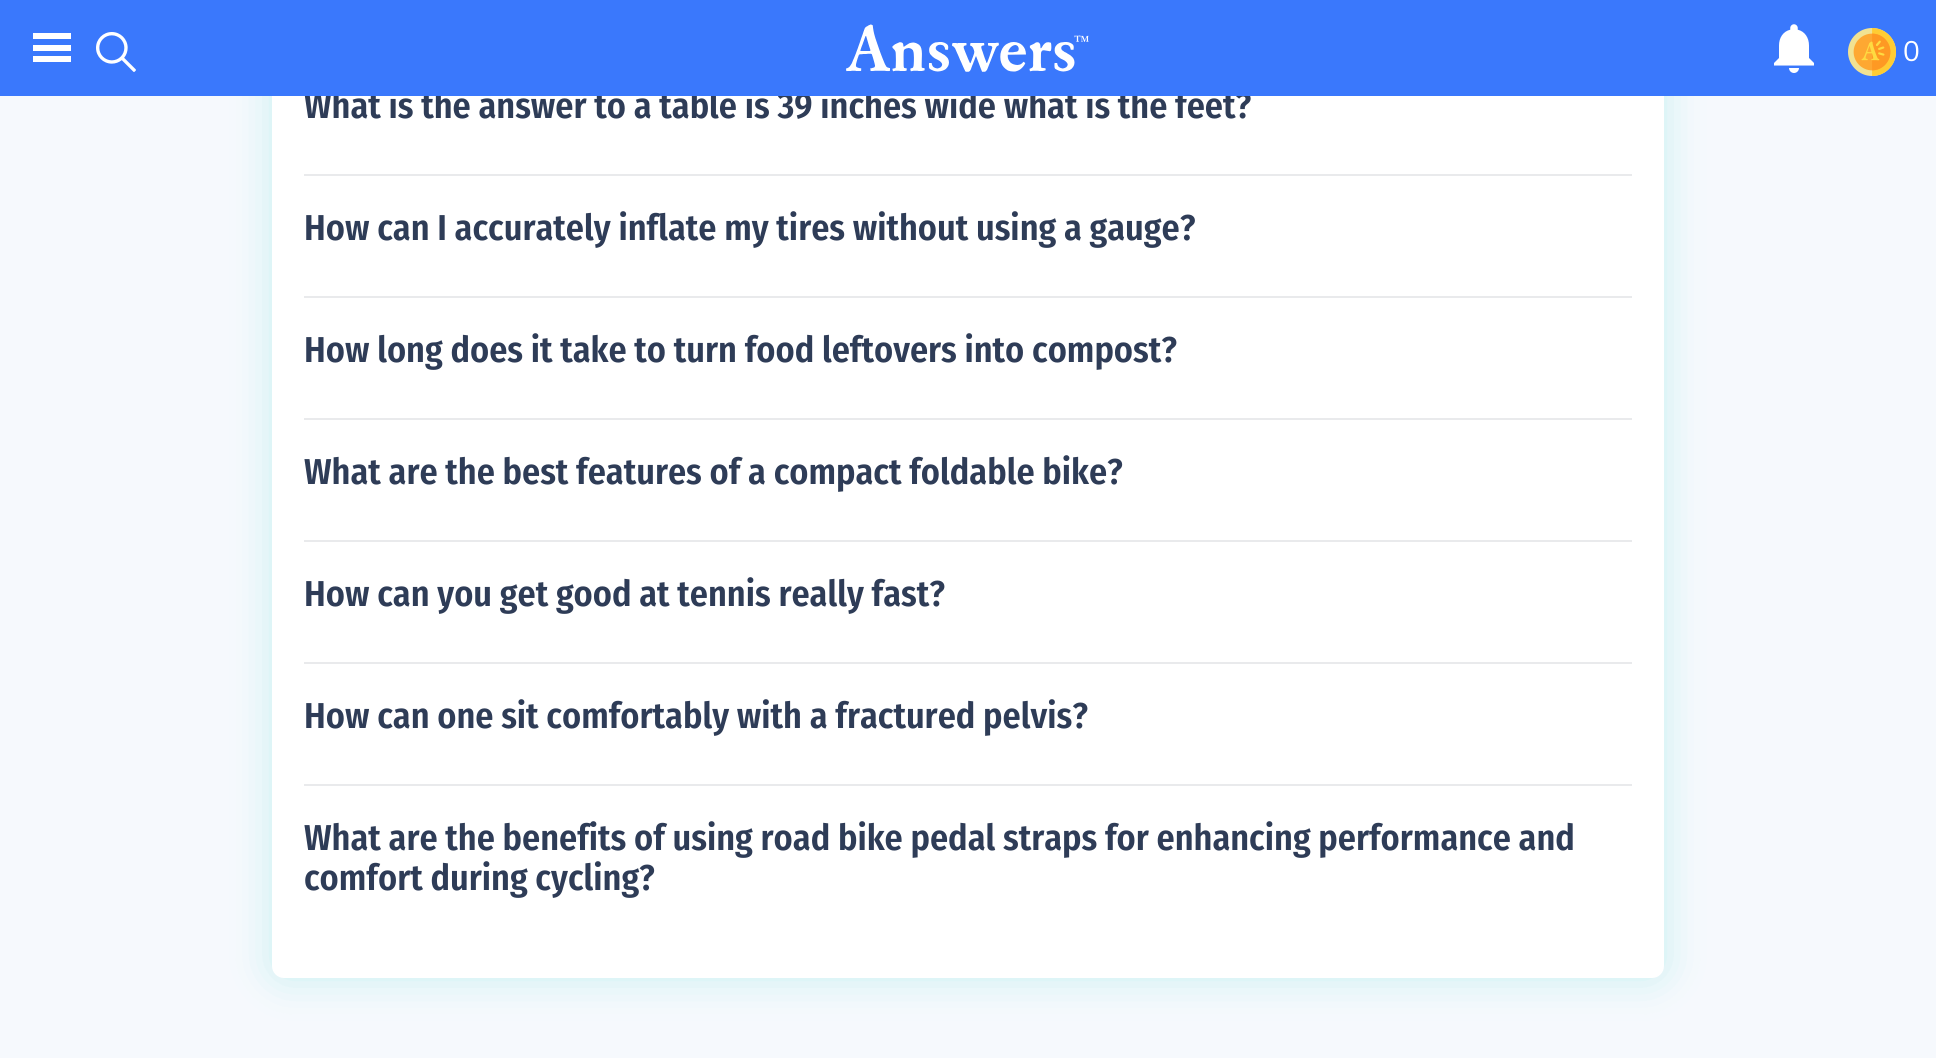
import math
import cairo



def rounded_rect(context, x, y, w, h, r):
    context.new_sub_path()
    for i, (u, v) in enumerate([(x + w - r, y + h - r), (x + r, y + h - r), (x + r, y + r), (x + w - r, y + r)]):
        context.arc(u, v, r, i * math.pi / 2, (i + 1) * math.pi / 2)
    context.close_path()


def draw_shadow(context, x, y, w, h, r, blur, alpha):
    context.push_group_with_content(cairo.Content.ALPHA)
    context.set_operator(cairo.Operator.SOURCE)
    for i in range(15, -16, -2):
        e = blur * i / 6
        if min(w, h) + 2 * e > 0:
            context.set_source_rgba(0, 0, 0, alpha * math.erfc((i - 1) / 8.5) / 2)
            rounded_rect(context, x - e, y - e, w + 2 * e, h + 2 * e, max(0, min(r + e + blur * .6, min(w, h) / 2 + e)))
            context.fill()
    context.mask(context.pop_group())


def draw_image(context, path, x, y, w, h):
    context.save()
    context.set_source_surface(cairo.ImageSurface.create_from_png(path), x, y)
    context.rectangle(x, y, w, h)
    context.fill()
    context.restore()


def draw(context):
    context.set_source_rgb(246 / 255, 249 / 255, 253 / 255)
    context.paint()
    context.set_source_rgb(0, 205 / 255, 189 / 255)
    draw_shadow(context, 272, -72, 1392, 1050, 12, 20, 0.2)
    context.set_source_rgb(1, 1, 1)
    rounded_rect(context, 272, -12, 1392, 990, 12)
    context.fill()
    context.set_source_rgb(233 / 255, 234 / 255, 236 / 255)
    context.rectangle(304, 174, 1328, 2)
    context.fill()
    context.rectangle(304, 296, 1328, 2)
    context.fill()
    context.rectangle(304, 418, 1328, 2)
    context.fill()
    context.rectangle(304, 540, 1328, 2)
    context.fill()
    context.rectangle(304, 662, 1328, 2)
    context.fill()
    context.rectangle(304, 784, 1328, 2)
    context.fill()
    context.select_font_face("Fira Sans Condensed SemiBold")
    context.set_font_size(36)
    context.set_source_rgb(46 / 255, 60 / 255, 87 / 255)
    context.move_to(304, 118)
    context.show_text("What is the answer to a table is 39 inches wide what is the feet?")
    context.set_source_rgb(58 / 255, 120 / 255, 252 / 255)
    context.rectangle(0, 0, 1936, 96)
    context.fill()
    draw_image(context, "images/3.png", 1774, 24, 40, 49)
    draw_image(context, "images/1.png", 96, 32, 40, 40)
    context.select_font_face("Muli")
    context.set_font_size(28)
    context.set_source_rgb(1, 1, 1)
    context.move_to(1903, 61)
    context.show_text("0")
    draw_image(context, "images/4.png", 1848, 28, 48, 48)
    draw_image(context, "images/2.png", 846, 24, 243, 48)
    context.rectangle(33, 56, 38, 6)
    context.fill()
    context.rectangle(33, 45, 38, 6)
    context.fill()
    context.rectangle(33, 33, 38, 6)
    context.fill()
    context.select_font_face("Fira Sans Condensed SemiBold")
    context.set_font_size(36)
    context.set_source_rgb(46 / 255, 60 / 255, 87 / 255)
    context.move_to(304, 240)
    context.show_text("How can I accurately inflate my tires without using a gauge?")
    context.move_to(304, 362)
    context.show_text("How long does it take to turn food leftovers into compost?")
    context.move_to(304, 484)
    context.show_text("What are the best features of a compact foldable bike?")
    context.move_to(304, 606)
    context.show_text("How can you get good at tennis really fast?")
    context.move_to(304, 728)
    context.show_text("How can one sit comfortably with a fractured pelvis?")
    context.move_to(304, 850)
    context.show_text("What are the benefits of using road bike pedal straps for enhancing performance and")
    context.move_to(304, 890)
    context.show_text("comfort during cycling?")


surface = cairo.ImageSurface(cairo.Format.RGB24, 1936, 1058)
context = cairo.Context(surface)
options = cairo.FontOptions()
options.set_hint_metrics(cairo.HintMetrics.OFF)
options.set_hint_style(cairo.HintStyle.NONE)
context.set_font_options(options)
context.set_miter_limit(4)
draw(context)
surface.write_to_png("out.png")
